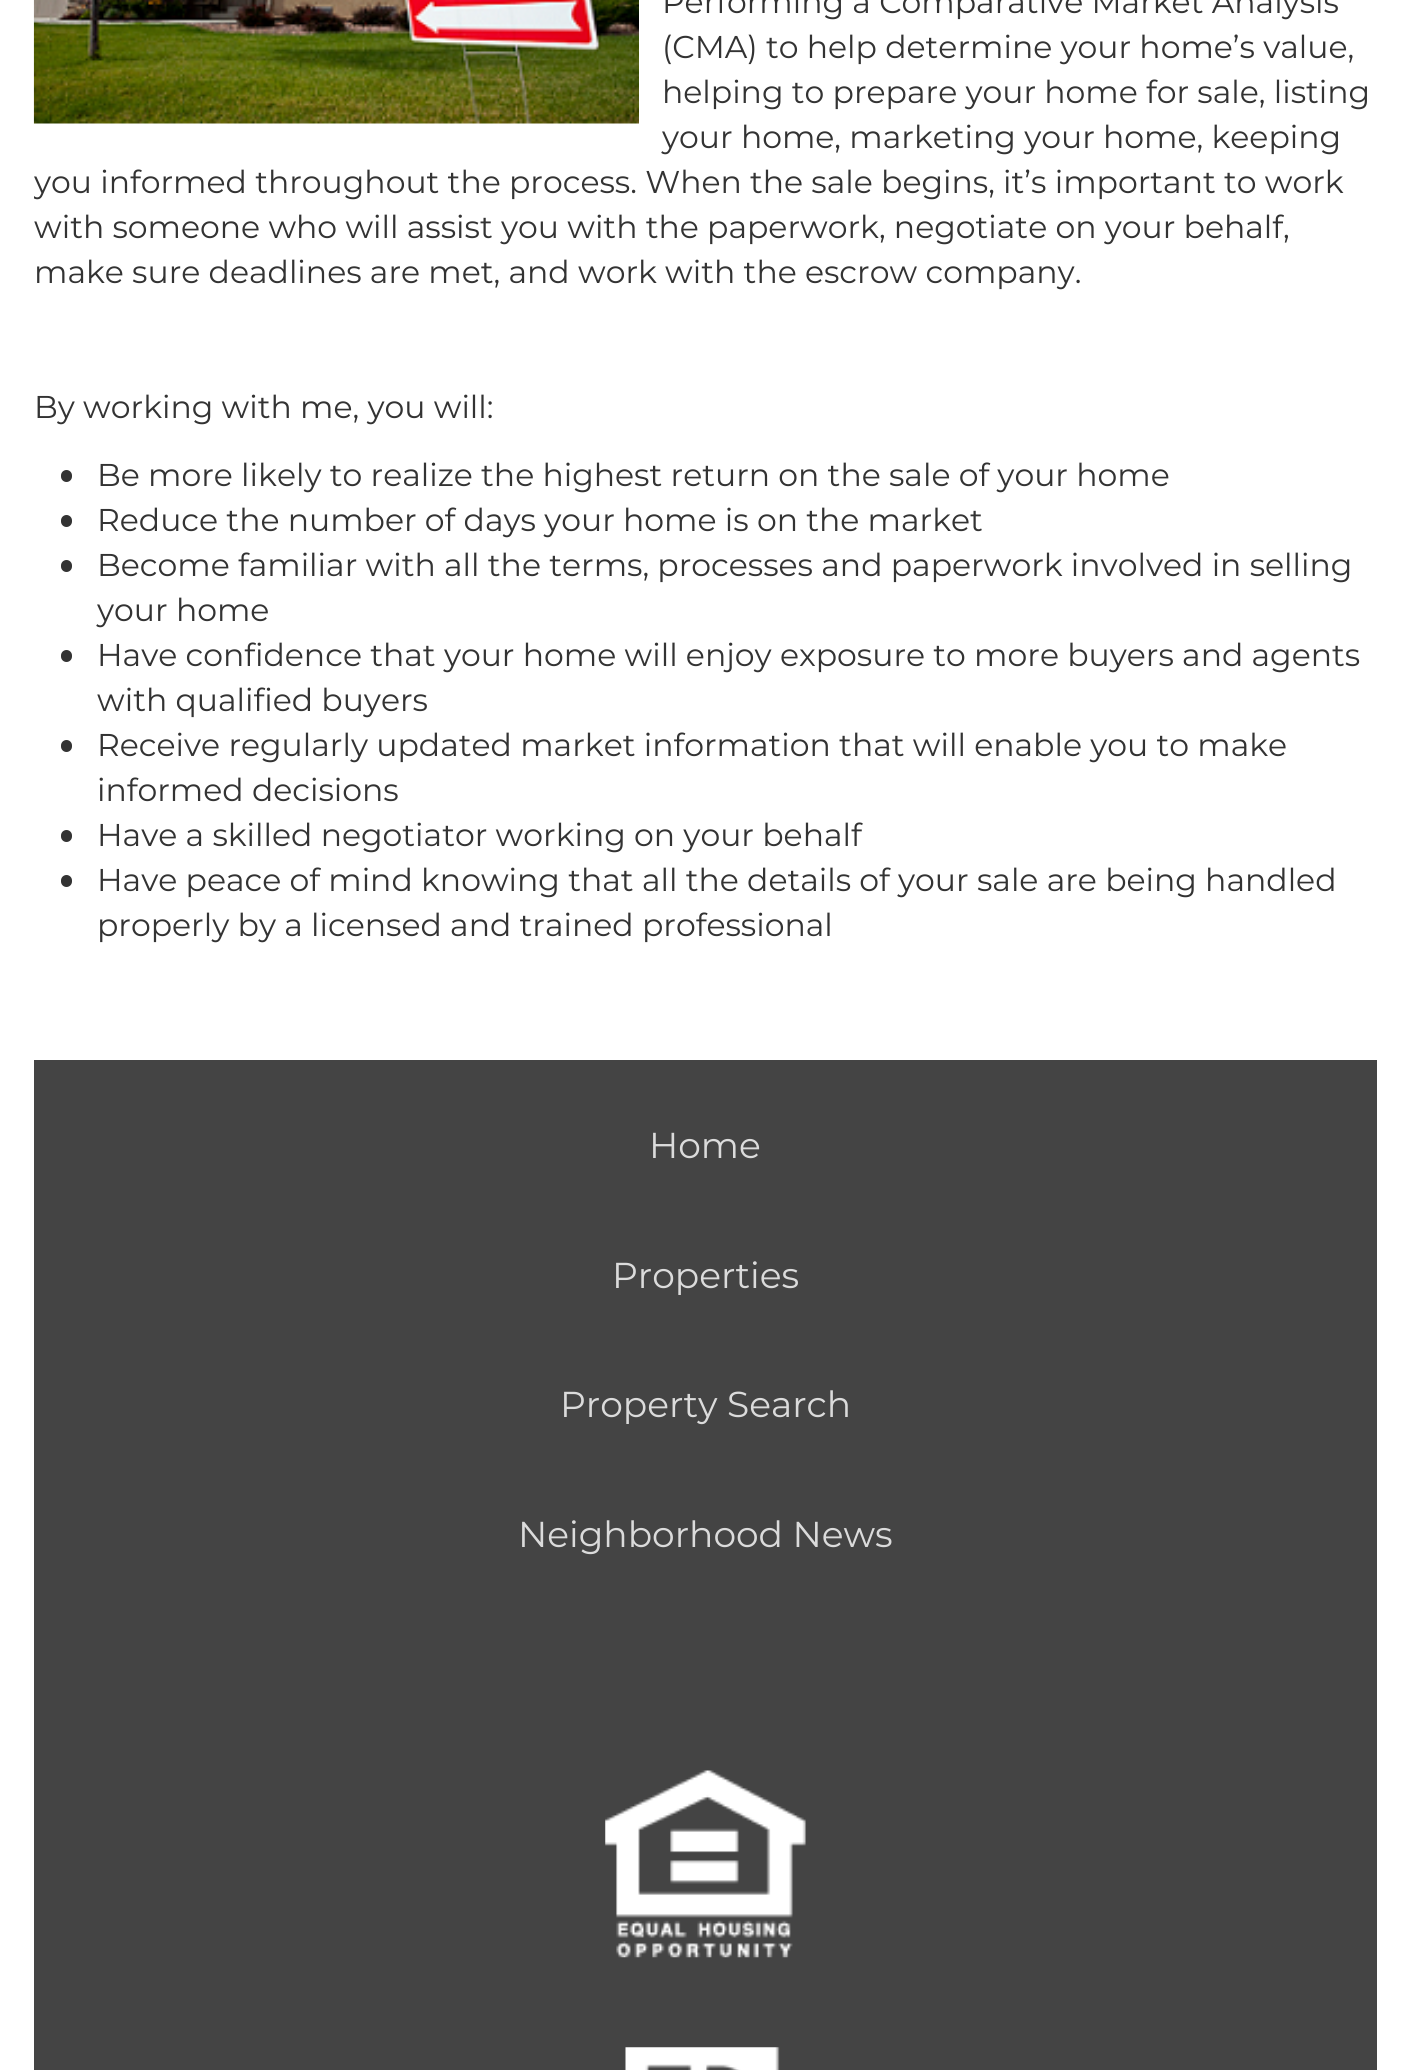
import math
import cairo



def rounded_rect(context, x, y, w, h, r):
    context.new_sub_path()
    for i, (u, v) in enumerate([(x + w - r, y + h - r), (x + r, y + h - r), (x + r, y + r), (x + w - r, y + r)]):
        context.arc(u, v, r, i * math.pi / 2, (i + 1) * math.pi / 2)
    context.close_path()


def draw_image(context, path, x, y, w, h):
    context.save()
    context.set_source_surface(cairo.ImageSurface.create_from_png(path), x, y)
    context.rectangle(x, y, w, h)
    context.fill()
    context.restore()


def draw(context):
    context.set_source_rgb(1, 1, 1)
    context.paint()
    draw_image(context, "images/1.png", 33, 0, 606, 124)
    context.set_source_rgb(51 / 255, 51 / 255, 51 / 255)
    rounded_rect(context, 61, 470, 11, 12, 5.5)
    context.fill()
    rounded_rect(context, 61, 515, 11, 12, 5.5)
    context.fill()
    rounded_rect(context, 61, 560, 11, 12, 5.5)
    context.fill()
    rounded_rect(context, 61, 650, 11, 12, 5.5)
    context.fill()
    rounded_rect(context, 61, 740, 11, 12, 5.5)
    context.fill()
    rounded_rect(context, 61, 830, 11, 12, 5.5)
    context.fill()
    rounded_rect(context, 61, 875, 11, 12, 5.5)
    context.fill()
    context.set_source_rgb(68 / 255, 68 / 255, 68 / 255)
    context.rectangle(34, 1060, 1343, 1010)
    context.fill()
    draw_image(context, "images/2.png", 605, 1770, 201, 188)
    draw_image(context, "images/3.png", 625, 2047, 155, 23)
    context.select_font_face("Montserrat Thin")
    context.set_font_size(31.5)
    context.set_source_rgb(51 / 255, 51 / 255, 51 / 255)
    context.move_to(662, 13)
    context.show_text("Performing a Comparative Market Analysis")
    context.move_to(662, 58)
    context.show_text("(CMA) to help determine your home’s value,")
    context.move_to(662, 103)
    context.show_text("helping to prepare your home for sale, listing")
    context.move_to(662, 148)
    context.show_text("your home, marketing your home, keeping")
    context.save()
    context.rectangle(34, 0, 1343, 1015)
    context.clip()
    context.move_to(34, 193)
    context.show_text("you informed throughout the process. When the sale begins, it’s important to work")
    context.restore()
    context.move_to(34, 238)
    context.show_text("with someone who will assist you with the paperwork, negotiate on your behalf,")
    context.move_to(34, 283)
    context.show_text("make sure deadlines are met, and work with the escrow company.")
    context.move_to(34, 418)
    context.show_text("By working with me, you will:")
    context.move_to(97, 486)
    context.show_text("Be more likely to realize the highest return on the sale of your home")
    context.move_to(97, 531)
    context.show_text("Reduce the number of days your home is on the market")
    context.move_to(97, 576)
    context.show_text("Become familiar with all the terms, processes and paperwork involved in selling")
    context.move_to(97, 621)
    context.show_text("your home")
    context.move_to(97, 666)
    context.show_text("Have confidence that your home will enjoy exposure to more buyers and agents")
    context.move_to(97, 711)
    context.show_text("with qualified buyers")
    context.move_to(97, 756)
    context.show_text("Receive regularly updated market information that will enable you to make")
    context.move_to(97, 801)
    context.show_text("informed decisions")
    context.move_to(97, 846)
    context.show_text("Have a skilled negotiator working on your behalf")
    context.move_to(97, 891)
    context.show_text("Have peace of mind knowing that all the details of your sale are being handled")
    context.move_to(97, 936)
    context.show_text("properly by a licensed and trained professional")
    context.set_font_size(36)
    context.set_source_rgb(219 / 255, 219 / 255, 219 / 255)
    context.move_to(649, 1158)
    context.show_text("Home")
    context.move_to(612, 1288)
    context.show_text("Properties")
    context.move_to(560, 1417)
    context.show_text("Property Search")
    context.move_to(518, 1547)
    context.show_text("Neighborhood News")


surface = cairo.ImageSurface(cairo.Format.RGB24, 1409, 2070)
context = cairo.Context(surface)
options = cairo.FontOptions()
options.set_hint_metrics(cairo.HintMetrics.OFF)
options.set_hint_style(cairo.HintStyle.NONE)
context.set_font_options(options)
context.set_miter_limit(4)
draw(context)
surface.write_to_png("out.png")
